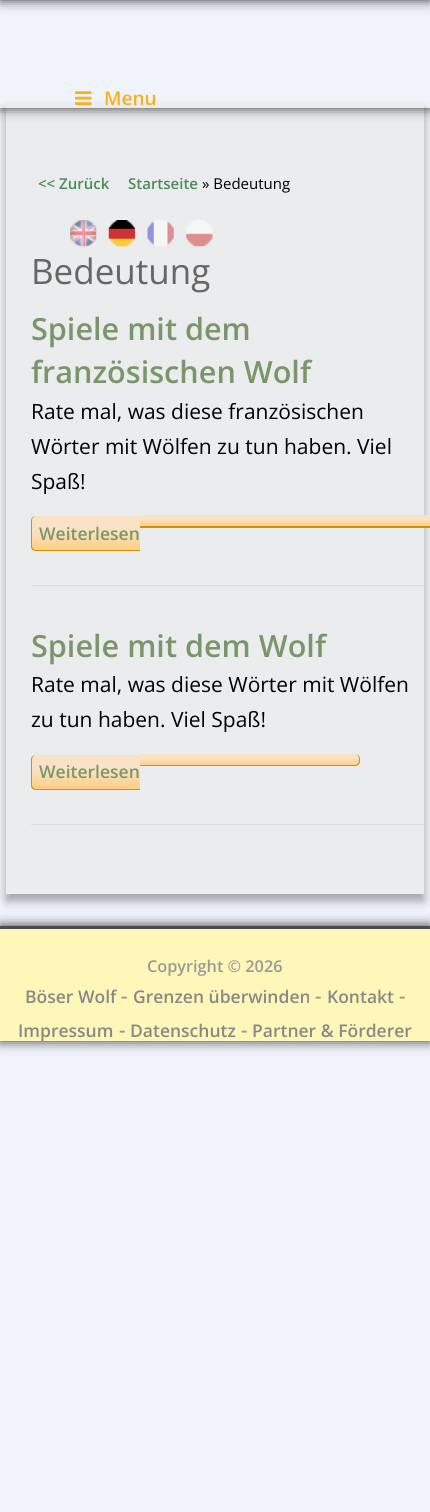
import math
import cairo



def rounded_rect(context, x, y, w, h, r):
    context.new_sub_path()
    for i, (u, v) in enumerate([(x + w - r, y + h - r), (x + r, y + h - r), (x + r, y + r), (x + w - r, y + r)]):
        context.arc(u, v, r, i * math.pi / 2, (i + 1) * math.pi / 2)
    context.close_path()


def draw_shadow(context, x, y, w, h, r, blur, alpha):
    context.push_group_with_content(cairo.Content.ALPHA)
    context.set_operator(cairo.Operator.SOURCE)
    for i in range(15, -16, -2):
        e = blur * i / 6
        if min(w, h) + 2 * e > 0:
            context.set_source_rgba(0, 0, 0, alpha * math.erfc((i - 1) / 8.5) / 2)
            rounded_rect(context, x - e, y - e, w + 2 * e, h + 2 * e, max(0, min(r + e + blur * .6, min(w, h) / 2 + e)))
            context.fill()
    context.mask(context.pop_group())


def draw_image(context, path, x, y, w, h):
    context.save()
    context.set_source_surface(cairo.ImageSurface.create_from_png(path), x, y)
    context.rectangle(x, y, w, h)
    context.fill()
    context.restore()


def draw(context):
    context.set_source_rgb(239 / 255, 243 / 255, 250 / 255)
    context.paint()
    context.set_source_rgb(0, 0, 0)
    draw_shadow(context, 0, -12, 430, 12, 0, 6, 0.8)
    draw_shadow(context, 6, 110, 418, 791, 0, 5, 0.33)
    context.set_source_rgb(235 / 255, 236 / 255, 237 / 255)
    context.rectangle(6, 103, 418, 791)
    context.fill()
    context.save()
    context.set_fill_rule(cairo.FillRule.EVEN_ODD)
    context.new_path()
    context.move_to(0, 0)
    context.line_to(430, 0)
    context.line_to(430, 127)
    context.line_to(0, 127)
    context.close_path()
    context.move_to(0, -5)
    context.line_to(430, -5)
    context.line_to(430, 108)
    context.line_to(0, 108)
    context.close_path()
    context.clip()
    context.set_source_rgb(0, 0, 0)
    draw_shadow(context, 0, -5, 430, 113, 0, 6, 0.8)
    context.restore()
    draw_image(context, "images/1.png", 75, 91, 17, 14)
    draw_image(context, "images/2.png", 70, 220, 27, 27)
    draw_image(context, "images/3.png", 108, 220, 27, 27)
    draw_image(context, "images/4.png", 147, 220, 27, 26)
    draw_image(context, "images/5.png", 186, 220, 27, 27)
    context.set_source_rgb(221 / 255, 221 / 255, 221 / 255)
    context.rectangle(31, 585, 393, 1)
    context.fill()
    context.save()
    context.new_path()
    context.move_to(36, 516)
    context.line_to(140, 516)
    context.line_to(140, 551)
    context.line_to(36, 551)
    context.curve_to(33, 551, 31, 549, 31, 546)
    context.line_to(31, 521)
    context.curve_to(31, 518, 33, 516, 36, 516)
    context.close_path()
    context.clip()
    gradient = cairo.LinearGradient(86, 516, 86, 550)
    gradient.add_color_stop_rgba(0, 249 / 255, 227 / 255, 198 / 255, 1)
    gradient.add_color_stop_rgba(0.4, 249 / 255, 227 / 255, 198 / 255, 1)
    gradient.add_color_stop_rgba(1, 254 / 255, 206 / 255, 133 / 255, 1)
    context.set_source(gradient)
    context.new_path()
    context.move_to(36, 516)
    context.line_to(140, 516)
    context.line_to(140, 550)
    context.line_to(31, 550)
    context.line_to(31, 521)
    context.curve_to(31, 518, 33, 516, 36, 516)
    context.close_path()
    context.fill()
    context.restore()
    context.set_source_rgb(209 / 255, 148 / 255, 5 / 255)
    context.set_fill_rule(cairo.FillRule.EVEN_ODD)
    context.new_path()
    context.move_to(36, 516)
    context.line_to(140, 516)
    context.line_to(140, 551)
    context.line_to(36, 551)
    context.curve_to(33, 551, 31, 549, 31, 546)
    context.line_to(31, 521)
    context.curve_to(31, 518, 33, 516, 36, 516)
    context.close_path()
    context.move_to(36, 516)
    context.line_to(140, 516)
    context.line_to(140, 550)
    context.line_to(36, 550)
    context.curve_to(34, 550, 32, 548, 32, 546)
    context.line_to(32, 521)
    context.curve_to(32, 518, 34, 516, 36, 516)
    context.close_path()
    context.fill()
    gradient = cairo.LinearGradient(288, 515, 288, 526)
    gradient.add_color_stop_rgba(0, 249 / 255, 227 / 255, 198 / 255, 1)
    gradient.add_color_stop_rgba(0.4, 249 / 255, 227 / 255, 198 / 255, 1)
    gradient.add_color_stop_rgba(1, 254 / 255, 206 / 255, 133 / 255, 1)
    context.set_source(gradient)
    context.rectangle(140, 515, 290, 11)
    context.fill()
    context.set_source_rgb(209 / 255, 148 / 255, 5 / 255)
    context.new_path()
    context.move_to(140, 515)
    context.line_to(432, 515)
    context.curve_to(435, 515, 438, 517, 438, 520)
    context.line_to(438, 522)
    context.curve_to(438, 525, 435, 528, 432, 528)
    context.line_to(140, 528)
    context.close_path()
    context.move_to(140, 515)
    context.line_to(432, 515)
    context.curve_to(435, 515, 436, 517, 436, 520)
    context.line_to(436, 522)
    context.curve_to(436, 525, 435, 526, 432, 526)
    context.line_to(140, 526)
    context.close_path()
    context.fill()
    context.set_source_rgb(221 / 255, 221 / 255, 221 / 255)
    context.rectangle(31, 824, 393, 1)
    context.fill()
    context.save()
    context.set_fill_rule(cairo.FillRule.WINDING)
    context.new_path()
    context.move_to(36, 755)
    context.line_to(140, 755)
    context.line_to(140, 790)
    context.line_to(36, 790)
    context.curve_to(33, 790, 31, 788, 31, 785)
    context.line_to(31, 760)
    context.curve_to(31, 757, 33, 755, 36, 755)
    context.close_path()
    context.clip()
    gradient = cairo.LinearGradient(86, 755, 86, 789)
    gradient.add_color_stop_rgba(0, 249 / 255, 227 / 255, 198 / 255, 1)
    gradient.add_color_stop_rgba(0.4, 249 / 255, 227 / 255, 198 / 255, 1)
    gradient.add_color_stop_rgba(1, 254 / 255, 206 / 255, 133 / 255, 1)
    context.set_source(gradient)
    context.new_path()
    context.move_to(36, 755)
    context.line_to(140, 755)
    context.line_to(140, 789)
    context.line_to(31, 789)
    context.line_to(31, 760)
    context.curve_to(31, 757, 33, 755, 36, 755)
    context.close_path()
    context.fill()
    context.restore()
    context.set_source_rgb(209 / 255, 148 / 255, 5 / 255)
    context.new_path()
    context.move_to(36, 755)
    context.line_to(140, 755)
    context.line_to(140, 790)
    context.line_to(36, 790)
    context.curve_to(33, 790, 31, 788, 31, 785)
    context.line_to(31, 760)
    context.curve_to(31, 757, 33, 755, 36, 755)
    context.close_path()
    context.move_to(36, 755)
    context.line_to(140, 755)
    context.line_to(140, 789)
    context.line_to(36, 789)
    context.curve_to(34, 789, 32, 787, 32, 785)
    context.line_to(32, 760)
    context.curve_to(32, 757, 34, 755, 36, 755)
    context.close_path()
    context.fill()
    context.save()
    context.set_fill_rule(cairo.FillRule.WINDING)
    context.new_path()
    context.move_to(140, 754)
    context.line_to(355, 754)
    context.curve_to(358, 754, 360, 756, 360, 759)
    context.line_to(360, 761)
    context.curve_to(360, 764, 358, 766, 355, 766)
    context.line_to(140, 766)
    context.close_path()
    context.clip()
    gradient = cairo.LinearGradient(249, 754, 249, 765)
    gradient.add_color_stop_rgba(0, 249 / 255, 227 / 255, 198 / 255, 1)
    gradient.add_color_stop_rgba(0.4, 249 / 255, 227 / 255, 198 / 255, 1)
    gradient.add_color_stop_rgba(1, 254 / 255, 206 / 255, 133 / 255, 1)
    context.set_source(gradient)
    context.new_path()
    context.move_to(140, 754)
    context.line_to(355, 754)
    context.curve_to(358, 754, 360, 756, 360, 759)
    context.line_to(360, 765)
    context.line_to(140, 765)
    context.close_path()
    context.fill()
    context.restore()
    context.new_path()
    context.move_to(140, 754)
    context.line_to(355, 754)
    context.curve_to(358, 754, 360, 756, 360, 759)
    context.line_to(360, 761)
    context.curve_to(360, 764, 358, 766, 355, 766)
    context.line_to(140, 766)
    context.close_path()
    context.move_to(140, 754)
    context.line_to(355, 754)
    context.curve_to(357, 754, 359, 756, 359, 759)
    context.line_to(359, 761)
    context.curve_to(359, 763, 357, 765, 355, 765)
    context.line_to(140, 765)
    context.close_path()
    context.fill()
    context.set_source_rgb(0, 0, 0)
    draw_shadow(context, 0, 926, 430, 115, 0, 6, 0.8)
    context.set_source_rgb(1, 247 / 255, 184 / 255)
    context.rectangle(0, 929, 430, 112)
    context.fill()
    context.set_source_rgb(77 / 255, 75 / 255, 78 / 255)
    context.rectangle(0, 926, 430, 3)
    context.fill()
    context.select_font_face("Open Sans SemiBold")
    context.set_font_size(19)
    context.set_source_rgb(251 / 255, 175 / 255, 27 / 255)
    context.move_to(104, 105)
    context.show_text("Menu")
    context.set_font_size(15)
    context.set_source_rgb(74 / 255, 139 / 255, 88 / 255)
    context.move_to(38, 189)
    context.show_text("<< Zurück")
    context.move_to(128, 189)
    context.show_text("Startseite")
    context.select_font_face("Open Sans")
    context.set_source_rgb(0, 0, 0)
    context.move_to(202, 189)
    context.show_text("» Bedeutung")
    context.set_font_size(35)
    context.set_source_rgb(102 / 255, 102 / 255, 102 / 255)
    context.move_to(31, 284)
    context.show_text("Bedeutung")
    context.select_font_face("Open Sans SemiBold")
    context.set_font_size(30.6)
    context.set_source_rgb(122 / 255, 150 / 255, 106 / 255)
    context.move_to(31, 340)
    context.show_text("Spiele mit dem")
    context.move_to(31, 383)
    context.show_text("französischen Wolf")
    context.select_font_face("Open Sans")
    context.set_font_size(21)
    context.set_source_rgb(0, 0, 0)
    context.move_to(31, 419)
    context.show_text("Rate mal, was diese französischen")
    context.move_to(31, 454)
    context.show_text("Wörter mit Wölfen zu tun haben. Viel")
    context.move_to(31, 489)
    context.show_text("Spaß!")
    context.select_font_face("Open Sans SemiBold")
    context.set_font_size(17.5)
    context.set_source_rgb(122 / 255, 150 / 255, 106 / 255)
    context.move_to(39, 540)
    context.show_text("Weiterlesen")
    context.set_font_size(30.6)
    context.move_to(31, 657)
    context.show_text("Spiele mit dem Wolf")
    context.select_font_face("Open Sans")
    context.set_font_size(21)
    context.set_source_rgb(0, 0, 0)
    context.move_to(31, 692)
    context.show_text("Rate mal, was diese Wörter mit Wölfen")
    context.move_to(31, 727)
    context.show_text("zu tun haben. Viel Spaß!")
    context.select_font_face("Open Sans SemiBold")
    context.set_font_size(17.5)
    context.set_source_rgb(122 / 255, 150 / 255, 106 / 255)
    context.move_to(39, 778)
    context.show_text("Weiterlesen")
    context.set_font_size(16.25)
    context.set_source_rgb(153 / 255, 153 / 255, 153 / 255)
    context.move_to(147, 972)
    context.show_text("Copyright © 2026")
    context.set_font_size(17.5)
    context.set_source_rgb(136 / 255, 136 / 255, 136 / 255)
    context.move_to(25, 1003)
    context.show_text("Böser Wolf")
    context.set_font_size(20)
    context.set_source_rgb(153 / 255, 153 / 255, 153 / 255)
    context.move_to(121, 1003)
    context.show_text("-")
    context.set_font_size(17.5)
    context.set_source_rgb(136 / 255, 136 / 255, 136 / 255)
    context.move_to(133, 1003)
    context.show_text("Grenzen überwinden")
    context.set_font_size(20)
    context.set_source_rgb(153 / 255, 153 / 255, 153 / 255)
    context.move_to(315, 1003)
    context.show_text("-")
    context.set_font_size(17.5)
    context.set_source_rgb(136 / 255, 136 / 255, 136 / 255)
    context.move_to(327, 1003)
    context.show_text("Kontakt")
    context.set_font_size(20)
    context.set_source_rgb(153 / 255, 153 / 255, 153 / 255)
    context.move_to(399, 1003)
    context.show_text("-")
    context.set_font_size(17.5)
    context.set_source_rgb(136 / 255, 136 / 255, 136 / 255)
    context.move_to(18, 1037)
    context.show_text("Impressum")
    context.set_font_size(20)
    context.set_source_rgb(153 / 255, 153 / 255, 153 / 255)
    context.move_to(119, 1037)
    context.show_text("-")
    context.set_font_size(17.5)
    context.set_source_rgb(136 / 255, 136 / 255, 136 / 255)
    context.move_to(130, 1037)
    context.show_text("Datenschutz")
    context.set_font_size(20)
    context.set_source_rgb(153 / 255, 153 / 255, 153 / 255)
    context.move_to(241, 1037)
    context.show_text("-")
    context.set_font_size(17.5)
    context.set_source_rgb(136 / 255, 136 / 255, 136 / 255)
    context.move_to(252, 1037)
    context.show_text("Partner & Förderer")


surface = cairo.ImageSurface(cairo.Format.RGB24, 430, 1512)
context = cairo.Context(surface)
options = cairo.FontOptions()
options.set_hint_metrics(cairo.HintMetrics.OFF)
options.set_hint_style(cairo.HintStyle.NONE)
context.set_font_options(options)
context.set_miter_limit(4)
draw(context)
surface.write_to_png("out.png")
